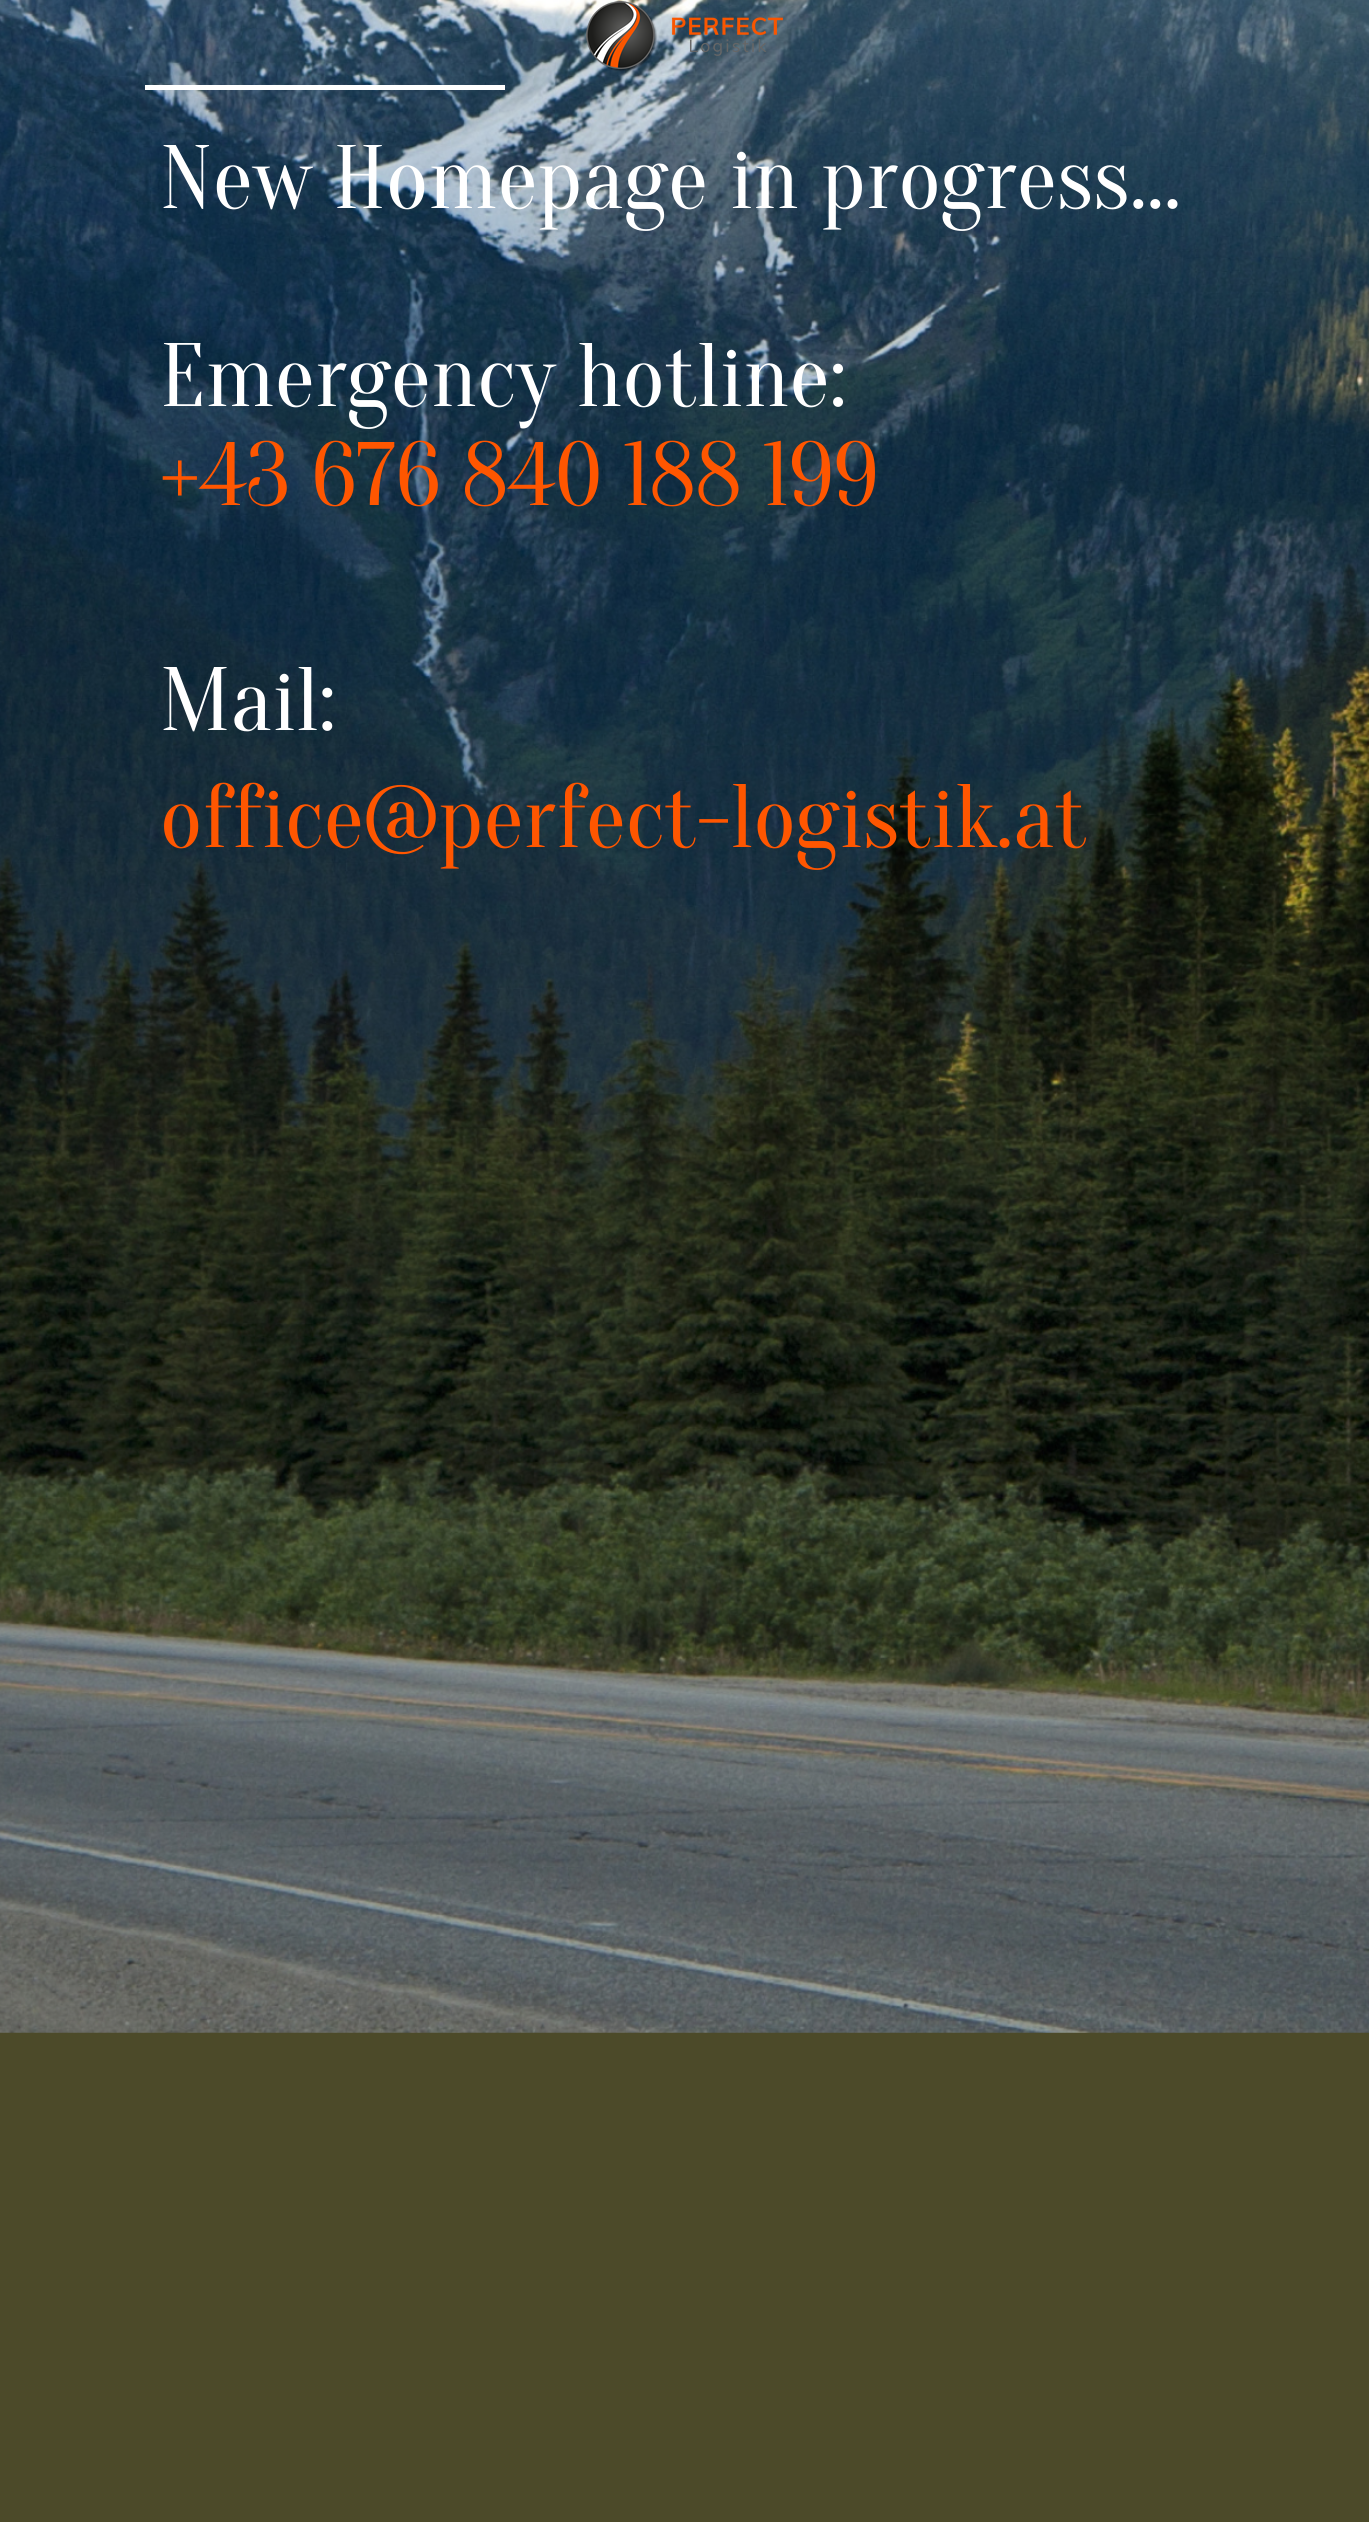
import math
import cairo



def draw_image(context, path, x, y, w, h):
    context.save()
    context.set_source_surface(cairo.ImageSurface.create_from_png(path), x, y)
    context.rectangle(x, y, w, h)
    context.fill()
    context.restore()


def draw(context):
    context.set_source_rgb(1, 1, 1)
    context.paint()
    draw_image(context, "images/1.png", 0, 0, 1369, 2522)
    draw_image(context, "images/2.png", 586, 1, 197, 71)
    context.set_source_rgb(1, 1, 1)
    context.rectangle(145, 85, 360, 5)
    context.fill()
    context.select_font_face("Oranienbaum")
    context.set_font_size(90)
    context.move_to(160, 208)
    context.show_text("New Homepage in progress...")
    context.move_to(160, 406)
    context.show_text("Emergency hotline:")
    context.set_source_rgb(1, 86 / 255, 0)
    context.move_to(160, 505)
    context.show_text("+43 676 840 188 199")
    context.set_source_rgb(1, 1, 1)
    context.move_to(160, 730)
    context.show_text("Mail:")
    context.set_source_rgb(1, 86 / 255, 0)
    context.move_to(160, 847)
    context.show_text("office@perfect-logistik.at")


surface = cairo.ImageSurface(cairo.Format.RGB24, 1369, 2522)
context = cairo.Context(surface)
options = cairo.FontOptions()
options.set_hint_metrics(cairo.HintMetrics.OFF)
options.set_hint_style(cairo.HintStyle.NONE)
context.set_font_options(options)
context.set_miter_limit(4)
draw(context)
surface.write_to_png("out.png")
